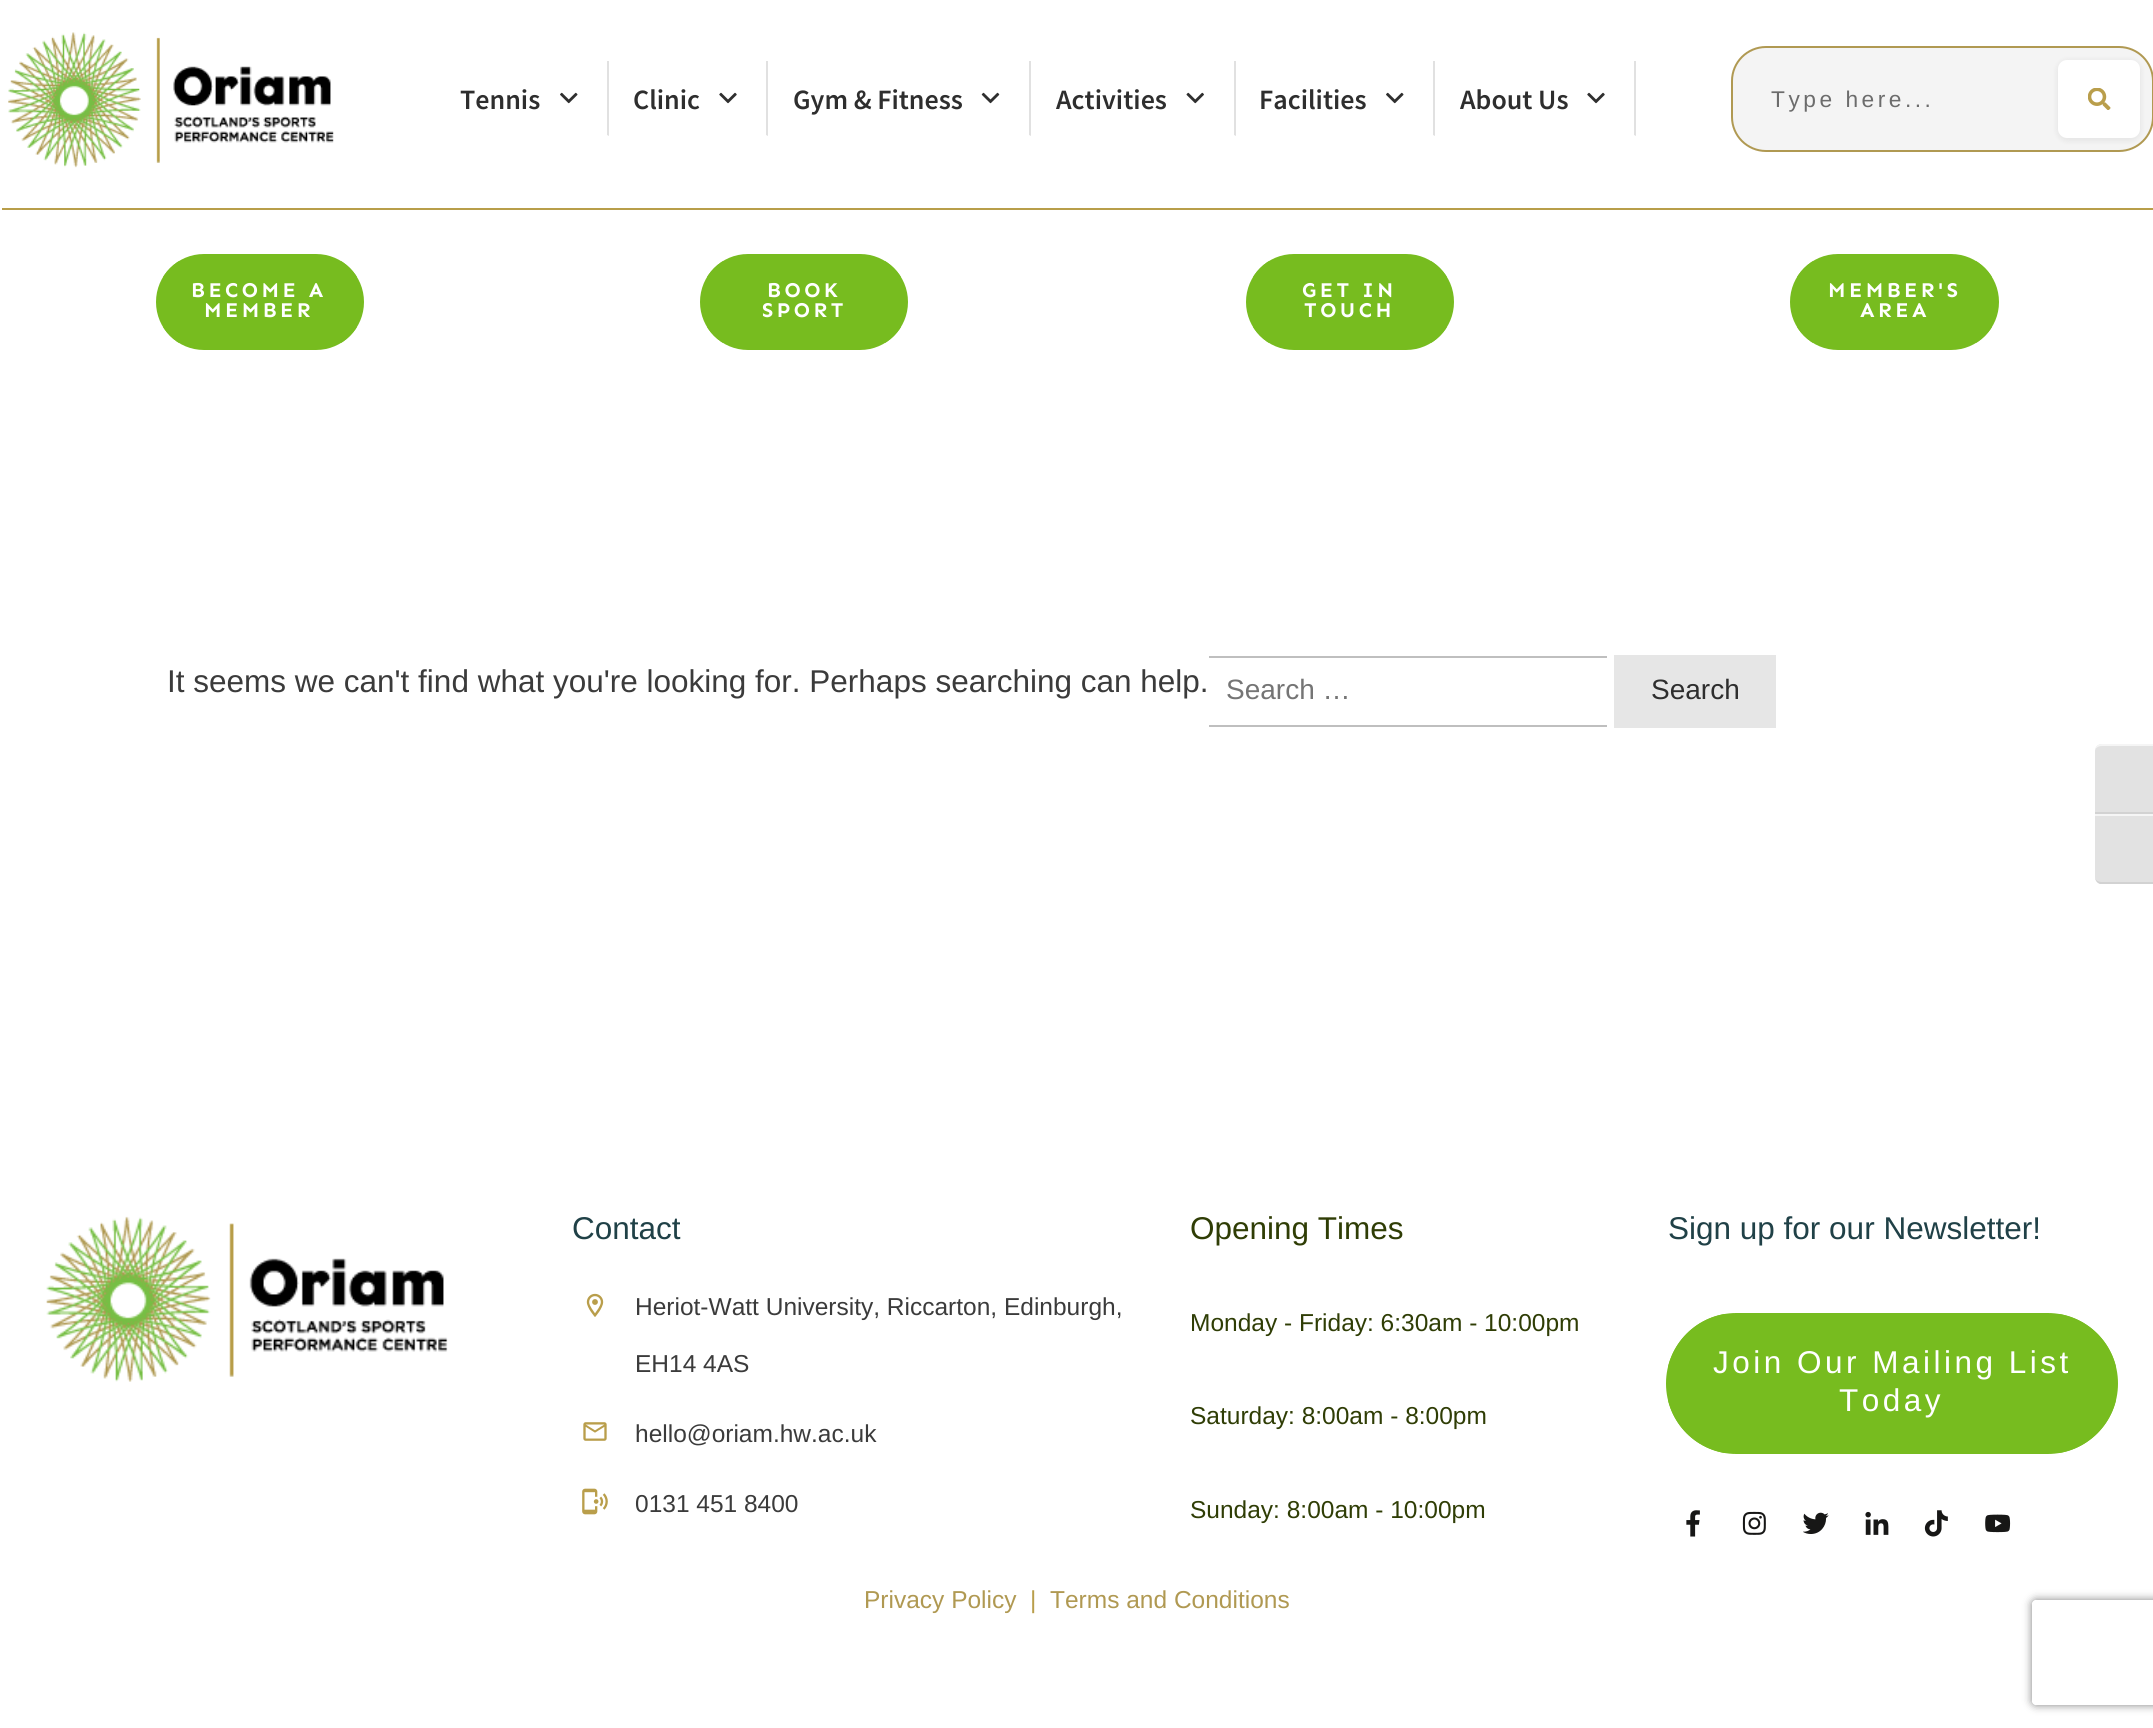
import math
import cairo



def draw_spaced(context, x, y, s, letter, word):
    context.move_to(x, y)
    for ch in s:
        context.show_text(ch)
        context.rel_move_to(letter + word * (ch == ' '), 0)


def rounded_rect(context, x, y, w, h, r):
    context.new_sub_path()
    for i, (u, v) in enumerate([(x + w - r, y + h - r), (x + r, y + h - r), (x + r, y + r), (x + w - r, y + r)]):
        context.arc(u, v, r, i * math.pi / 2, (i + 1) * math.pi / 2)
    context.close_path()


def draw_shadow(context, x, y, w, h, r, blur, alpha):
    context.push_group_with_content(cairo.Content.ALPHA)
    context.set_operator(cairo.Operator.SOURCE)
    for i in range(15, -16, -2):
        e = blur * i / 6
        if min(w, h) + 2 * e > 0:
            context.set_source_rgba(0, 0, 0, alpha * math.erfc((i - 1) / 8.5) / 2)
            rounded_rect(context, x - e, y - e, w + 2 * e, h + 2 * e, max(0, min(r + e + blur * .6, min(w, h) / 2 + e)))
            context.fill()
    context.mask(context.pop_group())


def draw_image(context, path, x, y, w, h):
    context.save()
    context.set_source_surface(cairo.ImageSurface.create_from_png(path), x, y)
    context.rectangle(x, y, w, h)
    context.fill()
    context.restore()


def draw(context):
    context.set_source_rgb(1, 1, 1)
    context.paint()
    draw_image(context, "images/1.png", 8, 32, 326, 136)
    context.set_source_rgb(225 / 255, 225 / 255, 225 / 255)
    context.new_path()
    context.move_to(609, 61)
    context.line_to(609, 136)
    context.line_to(607, 135)
    context.line_to(607, 61)
    context.close_path()
    context.fill()
    draw_image(context, "images/2.png", 560, 92, 18, 12)
    context.new_path()
    context.move_to(768, 61)
    context.line_to(768, 136)
    context.line_to(766, 135)
    context.line_to(766, 61)
    context.close_path()
    context.fill()
    draw_image(context, "images/3.png", 719, 92, 18, 12)
    context.new_path()
    context.move_to(1031, 61)
    context.line_to(1031, 136)
    context.line_to(1029, 135)
    context.line_to(1029, 61)
    context.close_path()
    context.fill()
    draw_image(context, "images/4.png", 981, 92, 19, 12)
    context.new_path()
    context.move_to(1236, 61)
    context.line_to(1236, 136)
    context.line_to(1234, 135)
    context.line_to(1234, 61)
    context.close_path()
    context.fill()
    draw_image(context, "images/5.png", 1186, 92, 18, 12)
    context.new_path()
    context.move_to(1435, 61)
    context.line_to(1435, 136)
    context.line_to(1433, 135)
    context.line_to(1433, 61)
    context.close_path()
    context.fill()
    draw_image(context, "images/2.png", 1386, 92, 18, 12)
    context.new_path()
    context.move_to(1636, 61)
    context.line_to(1636, 136)
    context.line_to(1634, 135)
    context.line_to(1634, 61)
    context.close_path()
    context.fill()
    draw_image(context, "images/3.png", 1587, 92, 18, 12)
    context.set_source_rgb(244 / 255, 244 / 255, 244 / 255)
    rounded_rect(context, 1732, 47, 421, 104, 34)
    context.fill_preserve()
    context.set_source_rgb(176 / 255, 153 / 255, 82 / 255)
    context.stroke()
    context.set_source_rgb(0, 0, 0)
    draw_shadow(context, 2058, 61, 82, 79, 9, 3.5, 0.08)
    context.set_source_rgb(1, 1, 1)
    rounded_rect(context, 2058, 60, 82, 78, 9)
    context.fill()
    draw_image(context, "images/6.png", 2088, 88, 23, 22)
    context.set_source_rgb(184 / 255, 158 / 255, 74 / 255)
    context.rectangle(2, 208, 2151, 2)
    context.fill()
    context.save()
    rounded_rect(context, 156, 254, 208, 96, 48)
    context.clip()
    context.set_source_rgb(119 / 255, 188 / 255, 31 / 255)
    context.rectangle(163, 261, 194, 82)
    context.fill()
    context.restore()
    rounded_rect(context, 159.5, 257.5, 201, 89, 44.5)
    context.set_source_rgb(119 / 255, 188 / 255, 31 / 255)
    context.set_line_width(7)
    context.stroke()
    context.save()
    rounded_rect(context, 700, 254, 208, 96, 48)
    context.clip()
    context.rectangle(707, 261, 194, 82)
    context.fill()
    context.restore()
    rounded_rect(context, 703.5, 257.5, 201, 89, 44.5)
    context.stroke()
    context.save()
    rounded_rect(context, 1246, 254, 208, 96, 48)
    context.clip()
    context.rectangle(1253, 261, 194, 82)
    context.fill()
    context.restore()
    rounded_rect(context, 1249.5, 257.5, 201, 89, 44.5)
    context.stroke()
    context.save()
    rounded_rect(context, 1790, 254, 209, 96, 48)
    context.clip()
    context.rectangle(1797, 261, 195, 82)
    context.fill()
    context.restore()
    rounded_rect(context, 1793.5, 257.5, 202, 89, 44.5)
    context.stroke()
    context.set_source_rgb(191 / 255, 191 / 255, 191 / 255)
    context.rectangle(1209, 656, 398, 2)
    context.fill()
    context.rectangle(1209, 725, 398, 2)
    context.fill()
    context.set_source_rgb(230 / 255, 230 / 255, 230 / 255)
    context.rectangle(1614, 655, 162, 73)
    context.fill()
    draw_image(context, "images/7.png", 46, 1216, 402, 166)
    draw_image(context, "images/8.png", 586, 1293, 18, 24)
    draw_image(context, "images/9.png", 583, 1422, 24, 19)
    draw_image(context, "images/10.png", 582, 1488, 26, 27)
    context.save()
    rounded_rect(context, 1666, 1313, 452, 141, 70.5)
    context.clip()
    context.set_source_rgb(119 / 255, 188 / 255, 31 / 255)
    context.rectangle(1668, 1314, 448, 139)
    context.fill()
    context.restore()
    rounded_rect(context, 1667, 1314, 450, 139, 69.5)
    context.set_source_rgb(119 / 255, 188 / 255, 31 / 255)
    context.set_line_width(2)
    context.stroke()
    draw_image(context, "images/11.png", 1686, 1510, 14, 27)
    draw_image(context, "images/12.png", 1742, 1511, 24, 24)
    draw_image(context, "images/13.png", 1803, 1512, 26, 22)
    draw_image(context, "images/14.png", 1865, 1511, 24, 24)
    draw_image(context, "images/15.png", 1924, 1510, 24, 27)
    draw_image(context, "images/16.png", 1985, 1514, 26, 19)
    context.set_source_rgb(226 / 255, 226 / 255, 226 / 255)
    context.new_path()
    context.move_to(2102, 744)
    context.line_to(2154, 744)
    context.line_to(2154, 814)
    context.line_to(2095, 814)
    context.line_to(2095, 751)
    context.curve_to(2095, 747, 2098, 744, 2102, 744)
    context.close_path()
    context.fill()
    context.set_source_rgb(245 / 255, 245 / 255, 245 / 255)
    context.new_path()
    context.move_to(2102, 744)
    context.curve_to(2098, 744, 2095, 747, 2095, 751)
    context.curve_to(2095, 748, 2098, 746, 2102, 746)
    context.line_to(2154, 746)
    context.line_to(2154, 744)
    context.close_path()
    context.fill()
    context.set_source_rgb(210 / 255, 210 / 255, 210 / 255)
    context.rectangle(2095, 812, 58, 2)
    context.fill()
    context.set_source_rgb(226 / 255, 226 / 255, 226 / 255)
    context.new_path()
    context.move_to(2095, 814)
    context.line_to(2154, 814)
    context.line_to(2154, 884)
    context.line_to(2102, 884)
    context.curve_to(2098, 884, 2095, 881, 2095, 877)
    context.close_path()
    context.fill()
    context.set_source_rgb(245 / 255, 245 / 255, 245 / 255)
    context.rectangle(2095, 814, 58, 2)
    context.fill()
    context.set_source_rgb(210 / 255, 210 / 255, 210 / 255)
    context.new_path()
    context.move_to(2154, 884)
    context.line_to(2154, 882)
    context.line_to(2102, 882)
    context.curve_to(2098, 882, 2095, 880, 2095, 877)
    context.curve_to(2095, 880, 2097, 883, 2100, 884)
    context.close_path()
    context.fill()
    context.save()
    context.set_fill_rule(cairo.FillRule.EVEN_ODD)
    context.new_path()
    context.move_to(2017, 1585)
    context.line_to(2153, 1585)
    context.line_to(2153, 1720)
    context.line_to(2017, 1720)
    context.close_path()
    context.move_to(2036, 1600)
    context.line_to(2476, 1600)
    context.curve_to(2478, 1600, 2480, 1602, 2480, 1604)
    context.line_to(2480, 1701)
    context.curve_to(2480, 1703, 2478, 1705, 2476, 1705)
    context.line_to(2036, 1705)
    context.curve_to(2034, 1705, 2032, 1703, 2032, 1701)
    context.line_to(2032, 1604)
    context.curve_to(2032, 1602, 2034, 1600, 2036, 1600)
    context.close_path()
    context.clip()
    context.set_source_rgb(128 / 255, 128 / 255, 128 / 255)
    draw_shadow(context, 2032, 1600, 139, 105, 4, 4.5, 1)
    context.restore()
    context.select_font_face("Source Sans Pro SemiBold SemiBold")
    context.set_font_size(28)
    context.set_source_rgb(46 / 255, 46 / 255, 46 / 255)
    context.move_to(460, 109)
    context.show_text("Tennis")
    context.move_to(633, 109)
    context.show_text("Clinic")
    context.move_to(793, 109)
    context.show_text("Gym & Fitness")
    context.move_to(1056, 109)
    context.show_text("Activities")
    context.move_to(1259, 109)
    context.show_text("Facilities")
    context.move_to(1460, 109)
    context.show_text("About Us")
    context.select_font_face("Liberation Sans")
    context.set_font_size(22.75)
    context.set_source_rgb(108 / 255, 108 / 255, 108 / 255)
    draw_spaced(context, 1771, 107, "Type here...", 3.5, 0)
    context.select_font_face("Sen", cairo.FontSlant.NORMAL, cairo.FontWeight.BOLD)
    context.set_font_size(21)
    context.set_source_rgb(1, 1, 1)
    draw_spaced(context, 191, 297, "BECOME A", 3.5, 0)
    draw_spaced(context, 204, 317, "MEMBER", 3.5, 0)
    draw_spaced(context, 767, 297, "BOOK", 3.5, 0)
    draw_spaced(context, 762, 317, "SPORT", 3.5, 0)
    draw_spaced(context, 1302, 297, "GET IN", 3.5, 0)
    draw_spaced(context, 1304, 317, "TOUCH", 3.5, 0)
    draw_spaced(context, 1828, 297, "MEMBER'S", 3.5, 0)
    draw_spaced(context, 1860, 317, "AREA", 3.5, 0)
    context.select_font_face("Liberation Sans")
    context.set_font_size(31.5)
    context.set_source_rgb(59 / 255, 59 / 255, 59 / 255)
    context.move_to(167, 692)
    context.show_text("It seems we can't find what you're looking for. Perhaps searching can help.")
    context.set_font_size(28)
    context.set_source_rgb(117 / 255, 117 / 255, 117 / 255)
    context.move_to(1226, 699)
    context.show_text("Search …")
    context.set_source_rgb(46 / 255, 46 / 255, 46 / 255)
    context.move_to(1651, 699)
    context.show_text("Search")
    context.set_font_size(31.5)
    context.set_source_rgb(32 / 255, 65 / 255, 71 / 255)
    context.move_to(572, 1239)
    context.show_text("Contact")
    context.set_font_size(24.5)
    context.set_source_rgb(59 / 255, 59 / 255, 59 / 255)
    context.move_to(635, 1315)
    context.show_text("Heriot-Watt University, Riccarton, Edinburgh,")
    context.move_to(635, 1372)
    context.show_text("EH14 4AS")
    context.move_to(635, 1442)
    context.show_text("hello@oriam.hw.ac.uk")
    context.move_to(635, 1512)
    context.show_text("0131 451 8400")
    context.set_font_size(31.5)
    context.set_source_rgb(47 / 255, 61 / 255, 5 / 255)
    context.move_to(1190, 1239)
    context.show_text("Opening Times")
    context.set_font_size(24.5)
    context.move_to(1190, 1331)
    context.show_text("Monday - Friday: 6:30am - 10:00pm")
    context.move_to(1190, 1424)
    context.show_text("Saturday: 8:00am - 8:00pm")
    context.move_to(1190, 1518)
    context.show_text("Sunday: 8:00am - 10:00pm")
    context.set_font_size(31.5)
    context.set_source_rgb(32 / 255, 65 / 255, 71 / 255)
    context.move_to(1668, 1239)
    context.show_text("Sign up for our Newsletter!")
    context.set_source_rgb(1, 1, 1)
    draw_spaced(context, 1713, 1373, "Join Our Mailing List", 3.5, 0)
    draw_spaced(context, 1839, 1411, "Today", 3.5, 0)
    context.set_font_size(24.5)
    context.set_source_rgb(176 / 255, 153 / 255, 82 / 255)
    context.move_to(864, 1608)
    context.show_text("Privacy Policy")
    context.set_source_rgb(185 / 255, 158 / 255, 75 / 255)
    context.move_to(1030, 1608)
    context.show_text("|")
    context.set_source_rgb(176 / 255, 153 / 255, 82 / 255)
    context.move_to(1050, 1608)
    context.show_text("Terms and Conditions")


surface = cairo.ImageSurface(cairo.Format.RGB24, 2153, 1728)
context = cairo.Context(surface)
options = cairo.FontOptions()
options.set_hint_metrics(cairo.HintMetrics.OFF)
options.set_hint_style(cairo.HintStyle.NONE)
context.set_font_options(options)
context.set_miter_limit(4)
draw(context)
surface.write_to_png("out.png")
